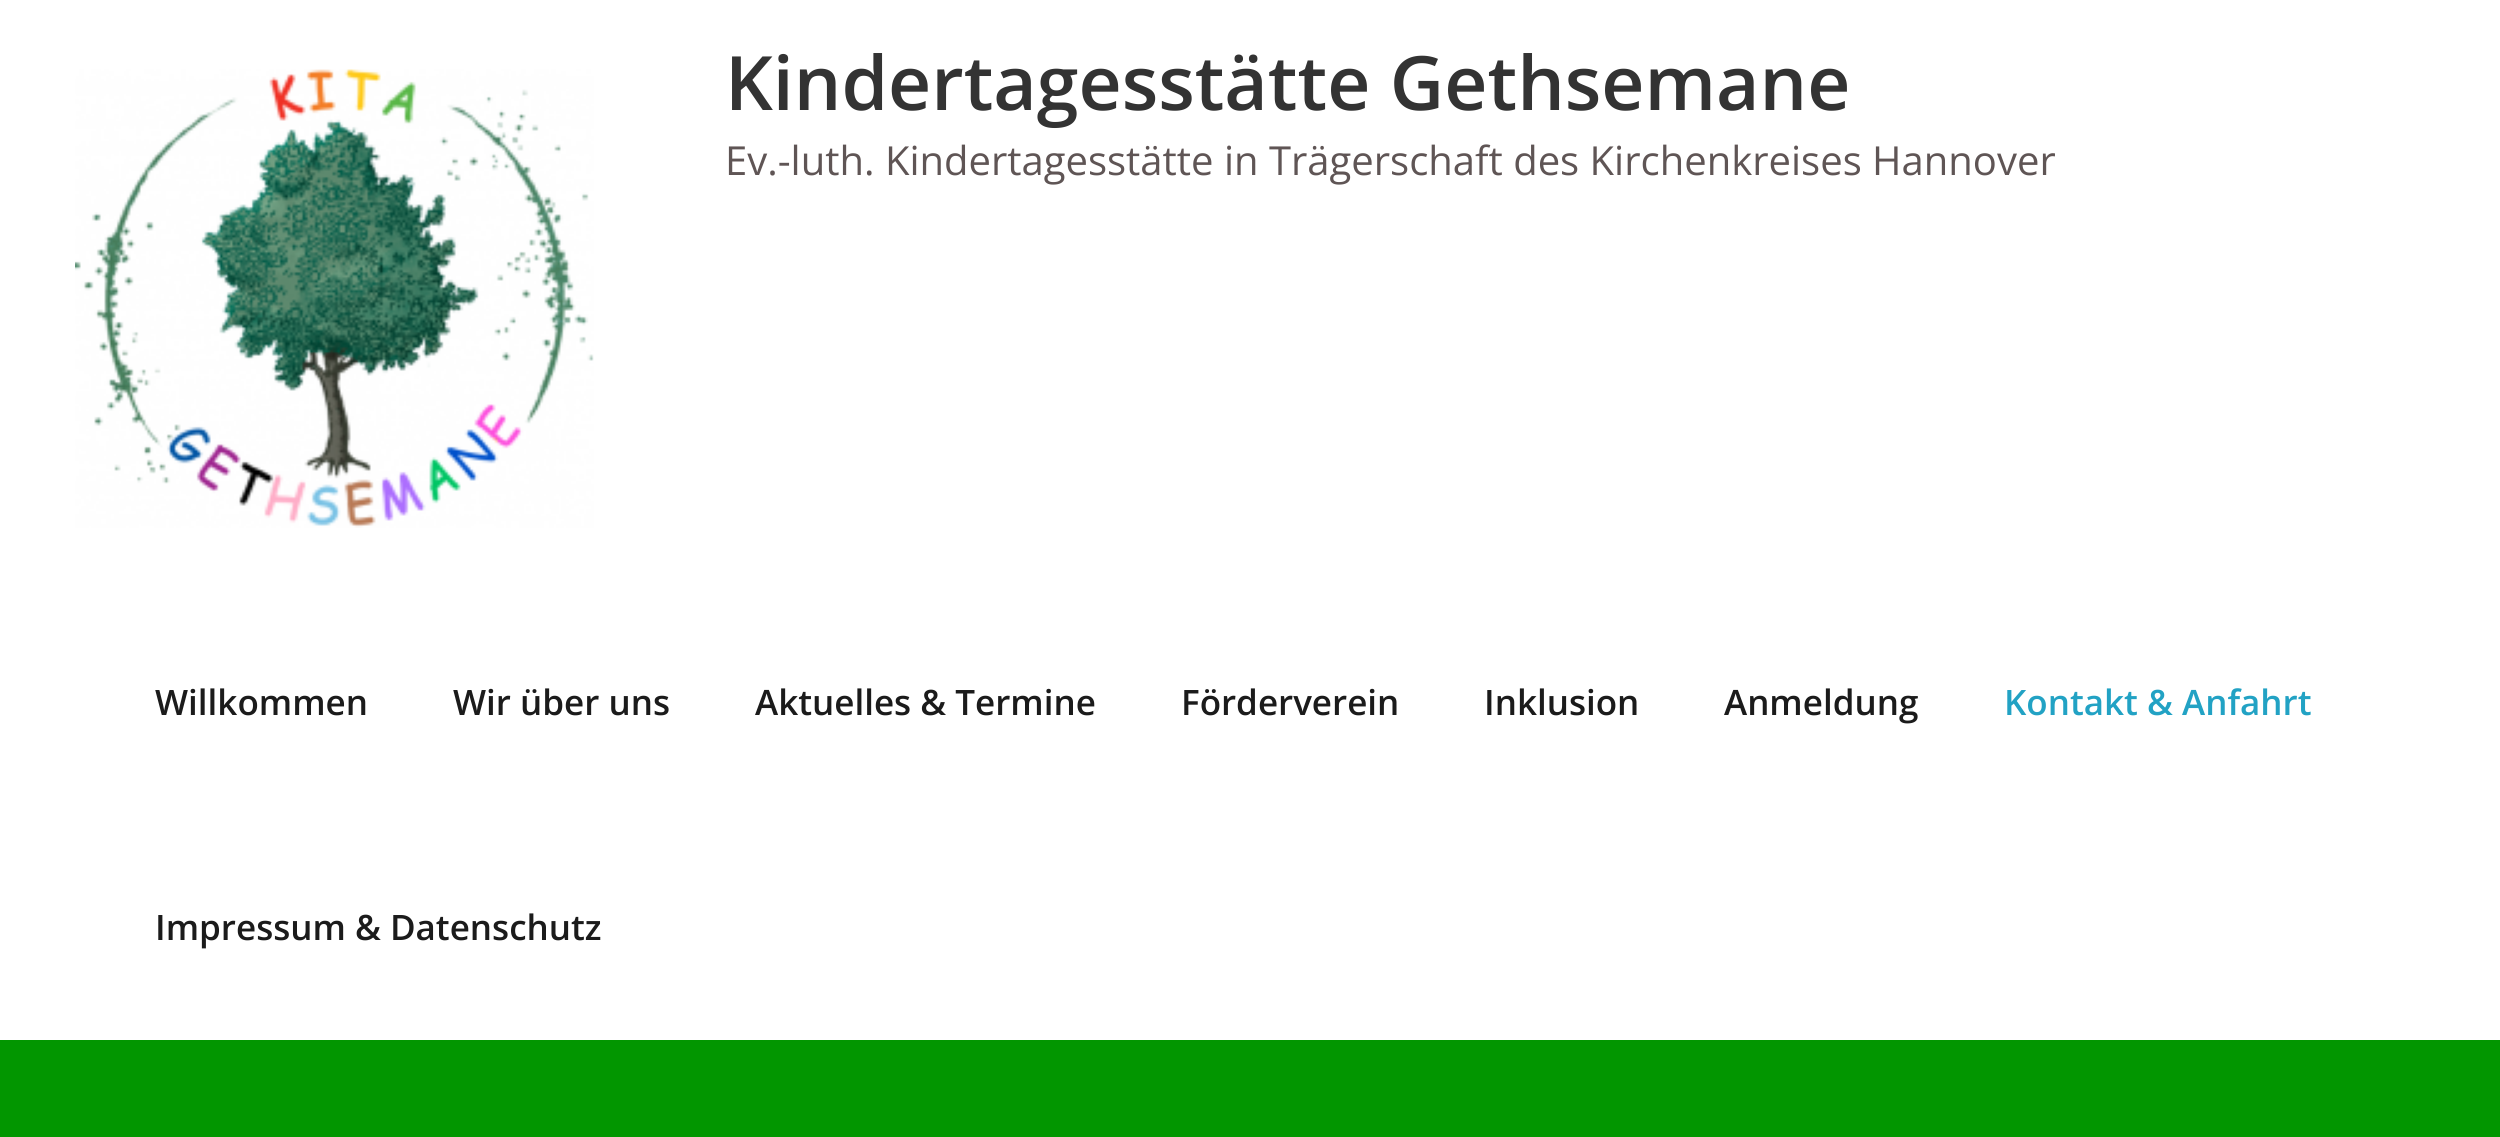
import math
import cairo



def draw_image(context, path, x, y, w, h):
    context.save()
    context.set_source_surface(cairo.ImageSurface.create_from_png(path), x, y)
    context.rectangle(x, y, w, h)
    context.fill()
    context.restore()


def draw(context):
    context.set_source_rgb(2 / 255, 150 / 255, 0)
    context.paint()
    context.set_source_rgb(1, 1, 1)
    context.rectangle(0, 0, 2500, 1040)
    context.fill()
    draw_image(context, "images/1.png", 75, 69, 519, 459)
    context.select_font_face("Open Sans SemiBold")
    context.set_font_size(75)
    context.set_source_rgb(51 / 255, 51 / 255, 51 / 255)
    context.move_to(725, 110)
    context.show_text("Kindertagesstätte Gethsemane")
    context.select_font_face("Open Sans")
    context.set_font_size(40)
    context.set_source_rgb(95 / 255, 85 / 255, 85 / 255)
    context.move_to(725, 175)
    context.show_text("Ev.-luth. Kindertagesstätte in Trägerschaft des Kirchenkreises Hannover")
    context.select_font_face("Open Sans SemiBold")
    context.set_font_size(35)
    context.set_source_rgb(27 / 255, 27 / 255, 27 / 255)
    context.move_to(155, 715)
    context.show_text("Willkommen")
    context.move_to(453, 715)
    context.show_text("Wir über uns")
    context.move_to(755, 715)
    context.show_text("Aktuelles & Termine")
    context.move_to(1181, 715)
    context.show_text("Förderverein")
    context.move_to(1484, 715)
    context.show_text("Inklusion")
    context.move_to(1724, 715)
    context.show_text("Anmeldung")
    context.set_source_rgb(34 / 255, 162 / 255, 196 / 255)
    context.move_to(2004, 715)
    context.show_text("Kontakt & Anfahrt")
    context.set_source_rgb(27 / 255, 27 / 255, 27 / 255)
    context.move_to(155, 940)
    context.show_text("Impressum & Datenschutz")


surface = cairo.ImageSurface(cairo.Format.RGB24, 2500, 1137)
context = cairo.Context(surface)
options = cairo.FontOptions()
options.set_hint_metrics(cairo.HintMetrics.OFF)
options.set_hint_style(cairo.HintStyle.NONE)
context.set_font_options(options)
context.set_miter_limit(4)
draw(context)
surface.write_to_png("out.png")
